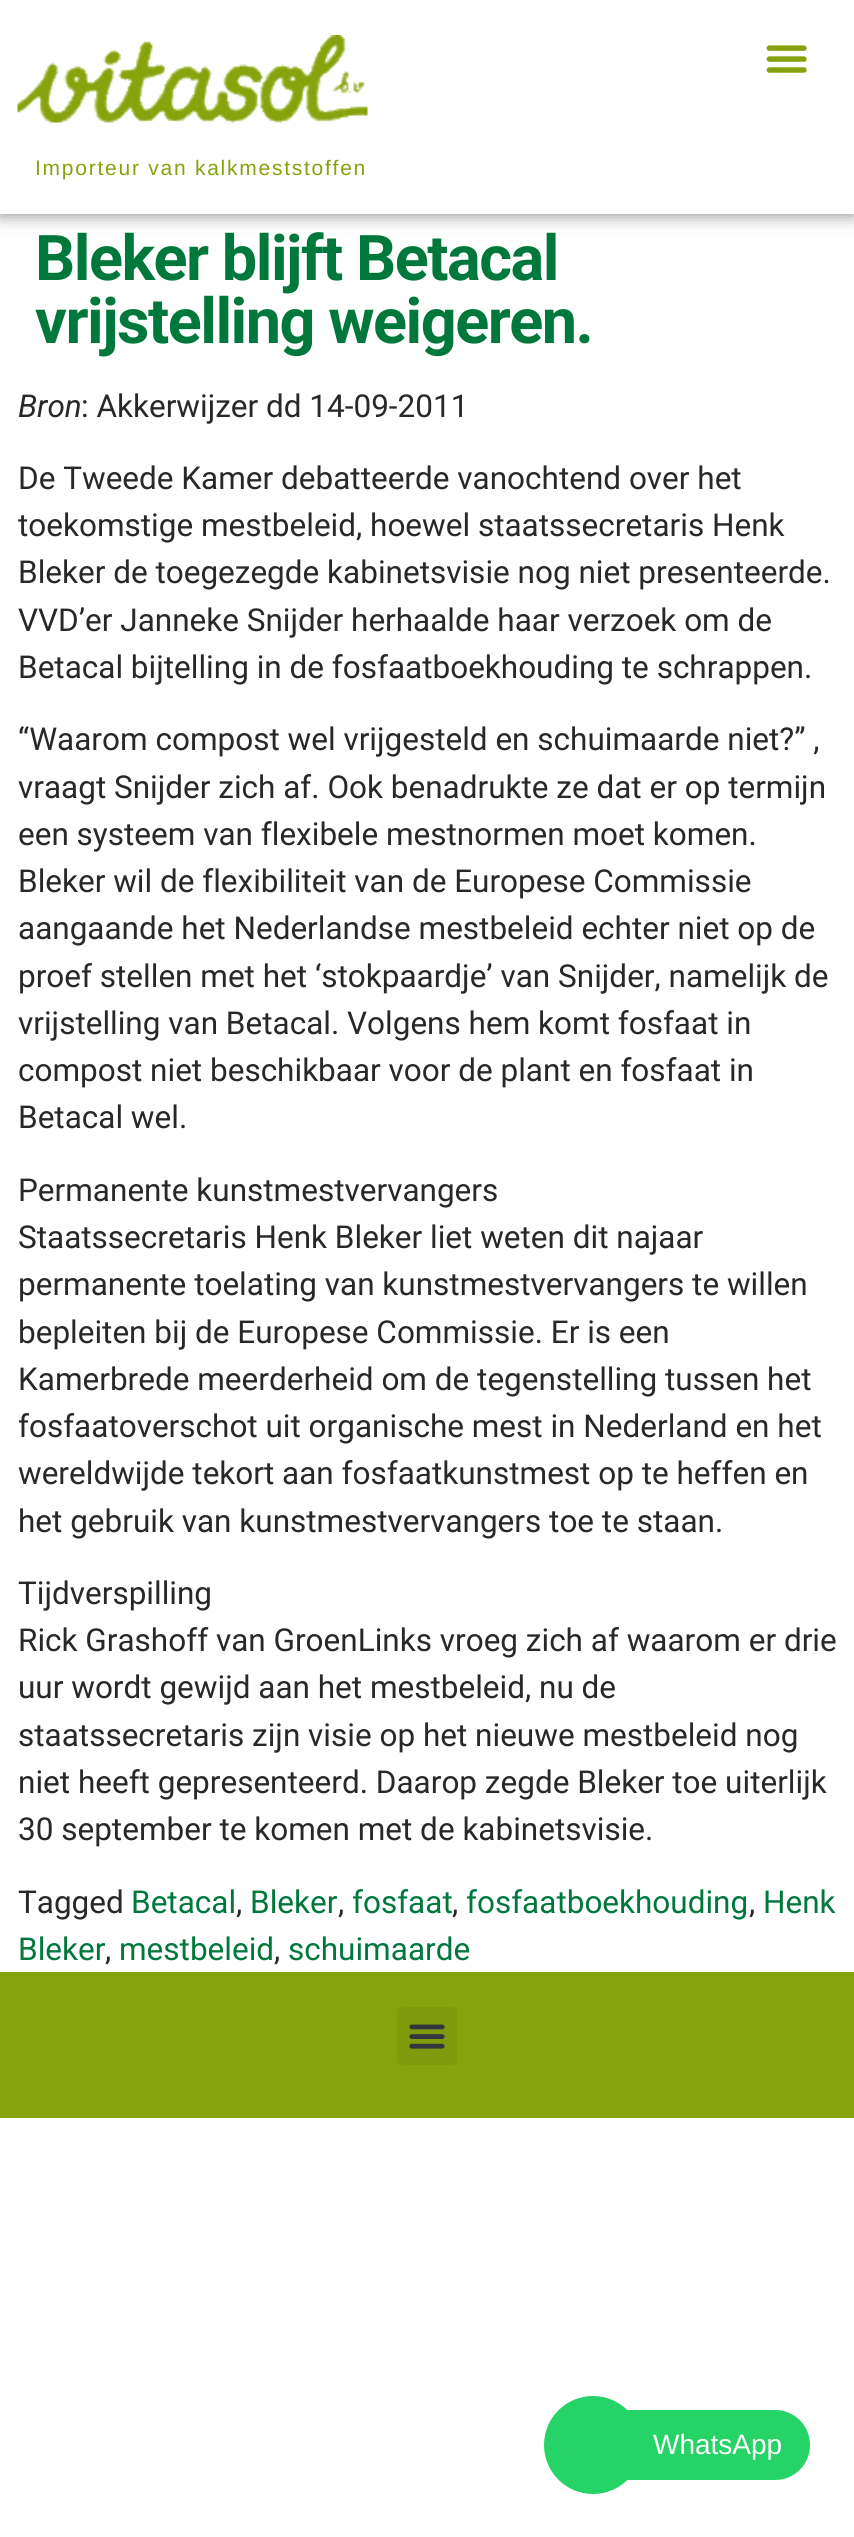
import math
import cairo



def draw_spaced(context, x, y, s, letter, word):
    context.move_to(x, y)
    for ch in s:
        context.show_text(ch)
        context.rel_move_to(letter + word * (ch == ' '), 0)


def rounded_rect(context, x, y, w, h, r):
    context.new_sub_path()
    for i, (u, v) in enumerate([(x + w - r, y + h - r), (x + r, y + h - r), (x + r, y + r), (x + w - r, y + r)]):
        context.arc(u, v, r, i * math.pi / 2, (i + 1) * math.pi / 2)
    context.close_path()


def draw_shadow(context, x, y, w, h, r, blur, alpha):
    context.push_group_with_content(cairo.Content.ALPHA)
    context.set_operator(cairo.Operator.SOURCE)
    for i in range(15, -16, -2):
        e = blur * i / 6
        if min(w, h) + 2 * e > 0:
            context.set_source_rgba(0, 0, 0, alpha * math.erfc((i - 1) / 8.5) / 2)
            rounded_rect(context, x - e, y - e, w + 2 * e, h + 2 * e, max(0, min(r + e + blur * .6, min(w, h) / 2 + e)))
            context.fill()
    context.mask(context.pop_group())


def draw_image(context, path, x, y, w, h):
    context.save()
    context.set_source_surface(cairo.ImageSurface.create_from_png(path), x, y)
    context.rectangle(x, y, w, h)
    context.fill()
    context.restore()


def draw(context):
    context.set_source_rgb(1, 1, 1)
    context.paint()
    context.set_source_rgb(0, 0, 0)
    draw_shadow(context, 0, 0, 854, 214, 0, 9, 0.5)
    context.set_source_rgb(1, 1, 1)
    context.rectangle(0, 0, 854, 214)
    context.fill()
    draw_image(context, "images/1.png", 766, 45, 41, 28)
    draw_image(context, "images/2.png", 17, 35, 351, 88)
    context.set_source_rgb(134 / 255, 162 / 255, 13 / 255)
    context.rectangle(0, 1972, 854, 146)
    context.fill()
    context.set_source_rgb(127 / 255, 154 / 255, 12 / 255)
    rounded_rect(context, 397, 2007, 60, 58, 5)
    context.fill()
    draw_image(context, "images/3.png", 409, 2024, 36, 25)
    context.set_source_rgb(37 / 255, 211 / 255, 102 / 255)
    context.new_path()
    context.move_to(625, 2410)
    context.line_to(775, 2410)
    context.curve_to(794.5, 2410, 810, 2425.5, 810, 2445)
    context.curve_to(810, 2464.5, 794.5, 2480, 775, 2480)
    context.line_to(625, 2480)
    context.close_path()
    context.fill()
    context.arc(593, 2445, 49, 0, 2 * math.pi)
    context.fill()
    context.select_font_face("Liberation Sans")
    context.set_font_size(21)
    context.set_source_rgb(134 / 255, 162 / 255, 13 / 255)
    draw_spaced(context, 35, 175, "Importeur van kalkmeststoffen", 1.75, 0)
    context.select_font_face("Roboto", cairo.FontSlant.NORMAL, cairo.FontWeight.BOLD)
    context.set_font_size(63)
    context.set_source_rgb(0, 120 / 255, 59 / 255)
    draw_spaced(context, 35, 280, "Bleker blijft Betacal", -1.5, 0)
    draw_spaced(context, 35, 343, "vrijstelling weigeren.", -1.5, 0)
    context.select_font_face("Roboto", cairo.FontSlant.ITALIC)
    context.set_font_size(31.5)
    context.set_source_rgb(41 / 255, 40 / 255, 40 / 255)
    context.move_to(18, 417)
    context.show_text("Bron")
    context.select_font_face("Roboto")
    context.move_to(81, 417)
    context.show_text(": Akkerwijzer dd 14-09-2011")
    context.move_to(18, 489)
    context.show_text("De Tweede Kamer debatteerde vanochtend over het")
    context.move_to(18, 536)
    context.show_text("toekomstige mestbeleid, hoewel staatssecretaris Henk")
    context.move_to(18, 583)
    context.show_text("Bleker de toegezegde kabinetsvisie nog niet presenteerde.")
    context.move_to(18, 631)
    context.show_text("VVD’er Janneke Snijder herhaalde haar verzoek om de")
    context.move_to(18, 678)
    context.show_text("Betacal bijtelling in de fosfaatboekhouding te schrappen.")
    context.move_to(18, 750)
    context.show_text("“Waarom compost wel vrijgesteld en schuimaarde niet?” ,")
    context.move_to(18, 798)
    context.show_text("vraagt Snijder zich af. Ook benadrukte ze dat er op termijn")
    context.move_to(18, 845)
    context.show_text("een systeem van flexibele mestnormen moet komen.")
    context.move_to(18, 892)
    context.show_text("Bleker wil de flexibiliteit van de Europese Commissie")
    context.move_to(18, 939)
    context.show_text("aangaande het Nederlandse mestbeleid echter niet op de")
    context.move_to(18, 987)
    context.show_text("proef stellen met het ‘stokpaardje’ van Snijder, namelijk de")
    context.move_to(18, 1034)
    context.show_text("vrijstelling van Betacal. Volgens hem komt fosfaat in")
    context.move_to(18, 1081)
    context.show_text("compost niet beschikbaar voor de plant en fosfaat in")
    context.move_to(18, 1128)
    context.show_text("Betacal wel.")
    context.move_to(18, 1201)
    context.show_text("Permanente kunstmestvervangers")
    context.move_to(18, 1248)
    context.show_text("Staatssecretaris Henk Bleker liet weten dit najaar")
    context.move_to(18, 1295)
    context.show_text("permanente toelating van kunstmestvervangers te willen")
    context.move_to(18, 1343)
    context.show_text("bepleiten bij de Europese Commissie. Er is een")
    context.move_to(18, 1390)
    context.show_text("Kamerbrede meerderheid om de tegenstelling tussen het")
    context.move_to(18, 1437)
    context.show_text("fosfaatoverschot uit organische mest in Nederland en het")
    context.move_to(18, 1484)
    context.show_text("wereldwijde tekort aan fosfaatkunstmest op te heffen en")
    context.move_to(18, 1532)
    context.show_text("het gebruik van kunstmestvervangers toe te staan.")
    context.move_to(18, 1604)
    context.show_text("Tijdverspilling")
    context.move_to(18, 1651)
    context.show_text("Rick Grashoff van GroenLinks vroeg zich af waarom er drie")
    context.move_to(18, 1698)
    context.show_text("uur wordt gewijd aan het mestbeleid, nu de")
    context.move_to(18, 1746)
    context.show_text("staatssecretaris zijn visie op het nieuwe mestbeleid nog")
    context.move_to(18, 1793)
    context.show_text("niet heeft gepresenteerd. Daarop zegde Bleker toe uiterlijk")
    context.move_to(18, 1840)
    context.show_text("30 september te komen met de kabinetsvisie.")
    context.move_to(18, 1913)
    context.show_text("Tagged")
    context.set_source_rgb(0, 120 / 255, 59 / 255)
    context.move_to(131, 1913)
    context.show_text("Betacal")
    context.set_source_rgb(41 / 255, 40 / 255, 40 / 255)
    context.move_to(236, 1913)
    context.show_text(",")
    context.set_source_rgb(0, 120 / 255, 59 / 255)
    context.move_to(250, 1913)
    context.show_text("Bleker")
    context.set_source_rgb(41 / 255, 40 / 255, 40 / 255)
    context.move_to(338, 1913)
    context.show_text(",")
    context.set_source_rgb(0, 120 / 255, 59 / 255)
    context.move_to(352, 1913)
    context.show_text("fosfaat")
    context.set_source_rgb(41 / 255, 40 / 255, 40 / 255)
    context.move_to(452, 1913)
    context.show_text(",")
    context.set_source_rgb(0, 120 / 255, 59 / 255)
    context.move_to(466, 1913)
    context.show_text("fosfaatboekhouding")
    context.set_source_rgb(41 / 255, 40 / 255, 40 / 255)
    context.move_to(749, 1913)
    context.show_text(",")
    context.set_source_rgb(0, 120 / 255, 59 / 255)
    context.move_to(763, 1913)
    context.show_text("Henk")
    context.move_to(18, 1960)
    context.show_text("Bleker")
    context.set_source_rgb(41 / 255, 40 / 255, 40 / 255)
    context.move_to(105, 1960)
    context.show_text(",")
    context.set_source_rgb(0, 120 / 255, 59 / 255)
    context.move_to(119, 1960)
    context.show_text("mestbeleid")
    context.set_source_rgb(41 / 255, 40 / 255, 40 / 255)
    context.move_to(274, 1960)
    context.show_text(",")
    context.set_source_rgb(0, 120 / 255, 59 / 255)
    context.move_to(288, 1960)
    context.show_text("schuimaarde")
    context.select_font_face("Liberation Sans")
    context.set_font_size(28)
    context.set_source_rgb(1, 1, 1)
    context.move_to(653, 2454)
    context.show_text("WhatsApp")


surface = cairo.ImageSurface(cairo.Format.RGB24, 854, 2537)
context = cairo.Context(surface)
options = cairo.FontOptions()
options.set_hint_metrics(cairo.HintMetrics.OFF)
options.set_hint_style(cairo.HintStyle.NONE)
context.set_font_options(options)
context.set_miter_limit(4)
draw(context)
surface.write_to_png("out.png")
